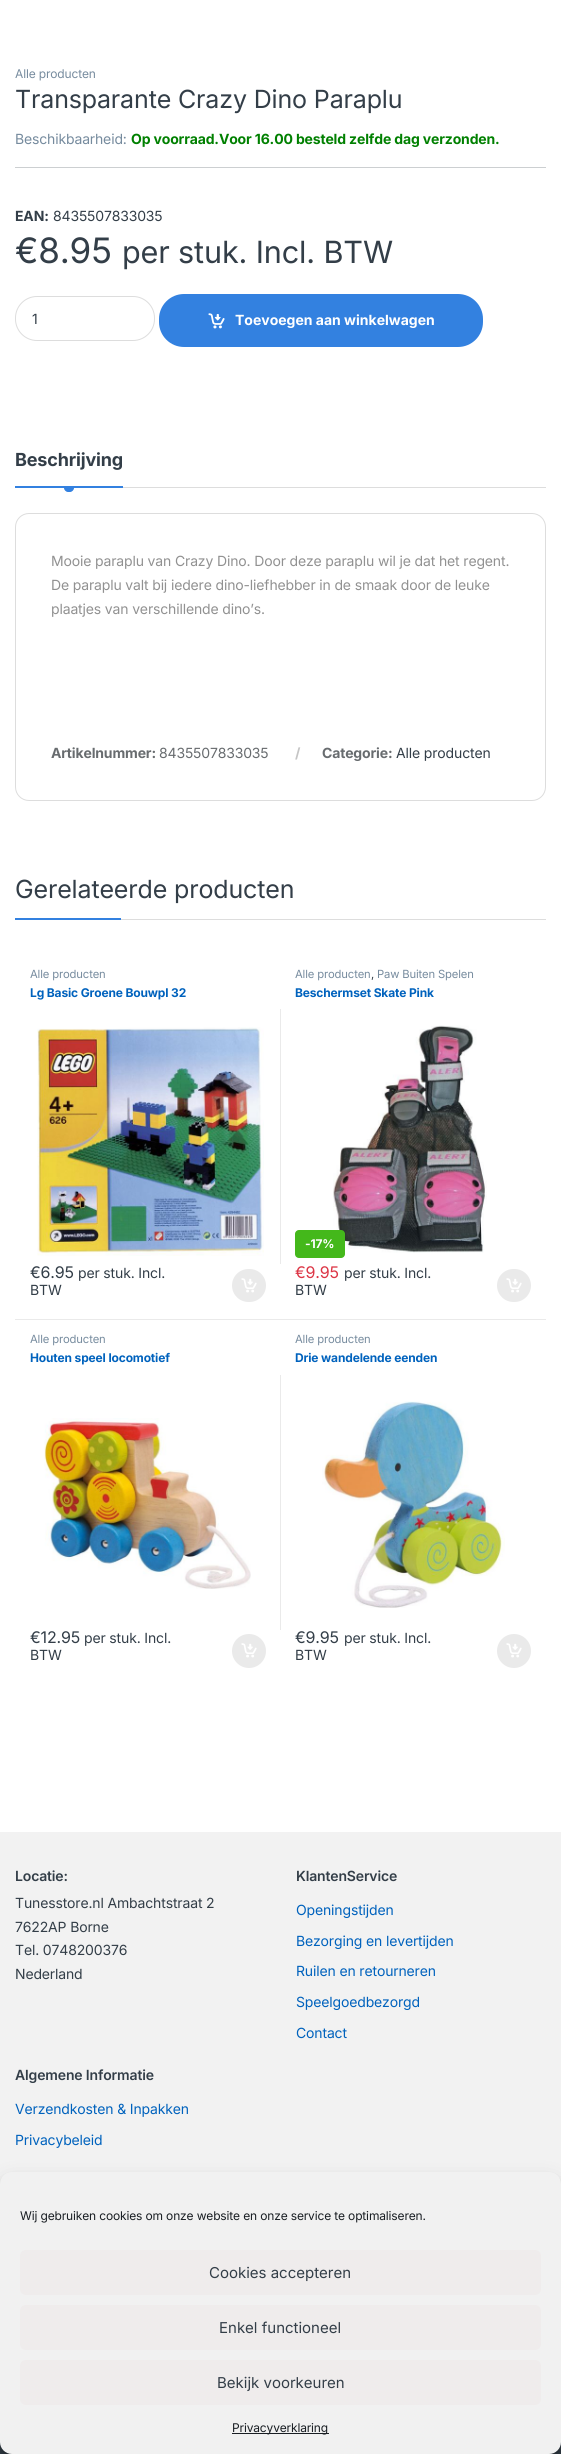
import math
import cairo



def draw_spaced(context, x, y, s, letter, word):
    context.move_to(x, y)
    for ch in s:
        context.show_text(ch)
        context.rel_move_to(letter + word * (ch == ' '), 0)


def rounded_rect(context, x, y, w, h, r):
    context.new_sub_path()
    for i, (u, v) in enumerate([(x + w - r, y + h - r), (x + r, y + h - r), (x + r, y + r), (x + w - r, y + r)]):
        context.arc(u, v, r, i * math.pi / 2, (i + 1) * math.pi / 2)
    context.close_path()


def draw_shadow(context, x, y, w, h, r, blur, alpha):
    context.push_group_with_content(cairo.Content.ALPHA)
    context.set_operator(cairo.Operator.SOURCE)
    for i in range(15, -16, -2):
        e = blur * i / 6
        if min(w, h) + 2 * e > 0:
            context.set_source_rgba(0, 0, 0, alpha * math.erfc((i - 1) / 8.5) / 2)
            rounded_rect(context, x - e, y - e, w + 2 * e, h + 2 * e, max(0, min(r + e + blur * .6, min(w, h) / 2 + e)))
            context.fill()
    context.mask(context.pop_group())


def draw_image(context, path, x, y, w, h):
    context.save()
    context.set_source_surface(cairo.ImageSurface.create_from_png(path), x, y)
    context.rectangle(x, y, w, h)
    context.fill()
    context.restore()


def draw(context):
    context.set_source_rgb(1, 1, 1)
    context.paint()
    context.set_source_rgb(204 / 255, 207 / 255, 209 / 255)
    context.rectangle(15, 167, 531, 1)
    context.fill()
    rounded_rect(context, 15.5, 296.5, 139, 44, 21.5)
    context.set_source_rgb(221 / 255, 221 / 255, 221 / 255)
    context.set_line_width(1)
    context.stroke()
    context.set_source_rgb(51 / 255, 129 / 255, 224 / 255)
    rounded_rect(context, 159, 294, 324, 53, 25)
    context.fill()
    draw_image(context, "images/1.png", 208, 313, 17, 16)
    context.rectangle(15, 486, 108, 2)
    context.fill()
    context.new_path()
    context.move_to(64, 488)
    context.line_to(74, 488)
    context.curve_to(74, 490, 72, 492, 70, 492)
    context.line_to(68, 492)
    context.curve_to(66, 492, 64, 490, 64, 488)
    context.close_path()
    context.fill()
    context.set_source_rgb(221 / 255, 221 / 255, 221 / 255)
    context.rectangle(123, 487, 423, 1)
    context.fill()
    rounded_rect(context, 15.5, 513.5, 530, 287, 13.5)
    context.stroke()
    context.rectangle(121, 919, 425, 1)
    context.fill()
    context.set_source_rgb(51 / 255, 129 / 255, 224 / 255)
    context.rectangle(15, 918, 106, 2)
    context.fill()
    context.set_source_rgb(234 / 255, 234 / 255, 234 / 255)
    context.rectangle(15, 1319, 531, 1)
    context.fill()
    draw_image(context, "images/2.png", 37, 1027, 227, 229)
    rounded_rect(context, 232, 1269, 34, 33, 16.5)
    context.fill()
    draw_image(context, "images/3.png", 241, 1278, 16, 15)
    context.rectangle(280, 1009, 1, 255)
    context.fill()
    draw_image(context, "images/4.png", 333, 1025, 154, 228)
    context.set_source_rgb(68 / 255, 184 / 255, 27 / 255)
    rounded_rect(context, 295, 1230, 50, 28, 4)
    context.fill()
    context.set_source_rgb(234 / 255, 234 / 255, 234 / 255)
    rounded_rect(context, 497, 1269, 34, 33, 16.5)
    context.fill()
    draw_image(context, "images/3.png", 506, 1278, 16, 15)
    draw_image(context, "images/5.png", 44, 1418, 207, 171)
    context.arc(249, 1651, 17, 0, 2 * math.pi)
    context.fill()
    draw_image(context, "images/3.png", 241, 1643, 16, 15)
    context.rectangle(280, 1375, 1, 255)
    context.fill()
    draw_image(context, "images/6.png", 322, 1401, 183, 207)
    context.arc(514, 1651, 17, 0, 2 * math.pi)
    context.fill()
    draw_image(context, "images/3.png", 506, 1643, 16, 15)
    context.set_source_rgb(242 / 255, 242 / 255, 242 / 255)
    context.rectangle(0, 1832, 561, 352)
    context.fill()
    context.set_source_rgb(51 / 255, 62 / 255, 72 / 255)
    context.rectangle(0, 2442, 561, 12)
    context.fill()
    context.set_source_rgb(0, 0, 0)
    draw_shadow(context, 0, 2178, 561, 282, 12, 3, 0.23)
    draw_shadow(context, 0, 2182, 561, 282, 12, 10, 0.19)
    context.set_source_rgb(241 / 255, 241 / 255, 241 / 255)
    rounded_rect(context, 0, 2172, 561, 282, 12)
    context.fill()
    context.set_source_rgb(239 / 255, 236 / 255, 236 / 255)
    rounded_rect(context, 20, 2250, 521, 45, 6)
    context.fill()
    rounded_rect(context, 20, 2305, 521, 45, 6)
    context.fill()
    rounded_rect(context, 20, 2360, 521, 45, 6)
    context.fill()
    context.set_source_rgb(25 / 255, 30 / 255, 35 / 255)
    context.rectangle(232, 2433, 97, 1)
    context.fill()
    context.select_font_face("Inter")
    context.set_font_size(12)
    context.set_source_rgb(118 / 255, 139 / 255, 158 / 255)
    draw_spaced(context, 15, 78, "Alle producten", -0.15, 0)
    context.set_font_size(25)
    context.set_source_rgb(51 / 255, 62 / 255, 72 / 255)
    draw_spaced(context, 15, 108, "Transparante Crazy Dino Paraplu", -0.15, 0)
    context.set_font_size(14)
    context.set_source_rgb(118 / 255, 139 / 255, 158 / 255)
    draw_spaced(context, 15, 144, "Beschikbaarheid:", -0.15, 0)
    context.select_font_face("Inter", cairo.FontSlant.NORMAL, cairo.FontWeight.BOLD)
    context.set_source_rgb(0, 128 / 255, 0)
    draw_spaced(context, 131, 144, "Op voorraad.Voor 16.00 besteld zelfde dag verzonden.", -0.15, 0)
    context.set_source_rgb(51 / 255, 62 / 255, 72 / 255)
    draw_spaced(context, 15, 221, "EAN:", -0.15, 0)
    context.select_font_face("Inter")
    draw_spaced(context, 53, 221, "8435507833035", -0.15, 0)
    context.set_font_size(35)
    draw_spaced(context, 15, 263, "€8.95", -0.15, 0)
    context.set_font_size(30.6)
    draw_spaced(context, 122, 263, "per stuk. Incl. BTW", -0.15, 0)
    context.set_font_size(14)
    context.move_to(32, 324)
    context.show_text("1")
    context.select_font_face("Inter", cairo.FontSlant.NORMAL, cairo.FontWeight.BOLD)
    context.set_source_rgb(1, 1, 1)
    context.move_to(235, 325)
    context.show_text("Toevoegen aan winkelwagen")
    context.set_font_size(18)
    context.set_source_rgb(51 / 255, 62 / 255, 72 / 255)
    draw_spaced(context, 15, 466, "Beschrijving", -0.15, 0)
    context.select_font_face("Inter")
    context.set_font_size(14)
    context.set_source_rgb(145 / 255, 145 / 255, 145 / 255)
    draw_spaced(context, 51, 566, "Mooie paraplu van Crazy Dino. Door deze paraplu wil je dat het regent.", -0.15, 0)
    draw_spaced(context, 51, 590, "De paraplu valt bij iedere dino-liefhebber in de smaak door de leuke", -0.15, 0)
    draw_spaced(context, 51, 614, "plaatjes van verschillende dino’s.", -0.15, 0)
    context.select_font_face("Inter", cairo.FontSlant.NORMAL, cairo.FontWeight.BOLD)
    context.set_source_rgb(104 / 255, 108 / 255, 111 / 255)
    draw_spaced(context, 51, 758, "Artikelnummer:", -0.15, 0)
    context.select_font_face("Inter")
    draw_spaced(context, 159, 758, "8435507833035", -0.15, 0)
    context.select_font_face("Inter", cairo.FontSlant.NORMAL, cairo.FontWeight.BOLD)
    context.set_source_rgb(197 / 255, 197 / 255, 197 / 255)
    draw_spaced(context, 295, 758, "/", -0.15, 0)
    context.set_source_rgb(104 / 255, 108 / 255, 111 / 255)
    draw_spaced(context, 322, 758, "Categorie:", -0.15, 0)
    context.select_font_face("Inter")
    context.set_source_rgb(51 / 255, 62 / 255, 72 / 255)
    draw_spaced(context, 396, 758, "Alle producten", -0.15, 0)
    context.set_font_size(25)
    draw_spaced(context, 15, 898, "Gerelateerde producten", -0.15, 0)
    context.set_font_size(11.25)
    context.set_source_rgb(118 / 255, 139 / 255, 158 / 255)
    draw_spaced(context, 30, 978, "Alle producten", -0.15, 0)
    context.select_font_face("Inter", cairo.FontSlant.NORMAL, cairo.FontWeight.BOLD)
    context.set_font_size(12)
    context.set_source_rgb(0, 98 / 255, 189 / 255)
    draw_spaced(context, 30, 997, "Lg Basic Groene Bouwpl 32", -0.15, 0)
    context.select_font_face("Inter")
    context.set_font_size(16)
    context.set_source_rgb(51 / 255, 62 / 255, 72 / 255)
    draw_spaced(context, 30, 1278, "€6.95", -0.15, 0)
    context.set_font_size(14)
    draw_spaced(context, 78, 1278, "per stuk. Incl.", -0.15, 0)
    draw_spaced(context, 30, 1295, "BTW", -0.15, 0)
    context.set_font_size(11.25)
    context.set_source_rgb(118 / 255, 139 / 255, 158 / 255)
    draw_spaced(context, 295, 978, "Alle producten", -0.15, 0)
    context.set_source_rgb(51 / 255, 62 / 255, 72 / 255)
    draw_spaced(context, 371, 978, ",", -0.15, 0)
    context.set_source_rgb(118 / 255, 139 / 255, 158 / 255)
    draw_spaced(context, 377, 978, "Paw Buiten Spelen", -0.15, 0)
    context.select_font_face("Inter", cairo.FontSlant.NORMAL, cairo.FontWeight.BOLD)
    context.set_font_size(12)
    context.set_source_rgb(0, 98 / 255, 189 / 255)
    draw_spaced(context, 295, 997, "Beschermset Skate Pink", -0.15, 0)
    context.set_source_rgb(1, 1, 1)
    draw_spaced(context, 305, 1248, "-17%", -0.15, 0)
    context.select_font_face("Inter")
    context.set_font_size(16)
    context.set_source_rgb(220 / 255, 53 / 255, 69 / 255)
    draw_spaced(context, 295, 1278, "€9.95", -0.15, 0)
    context.set_font_size(14)
    context.set_source_rgb(51 / 255, 62 / 255, 72 / 255)
    draw_spaced(context, 344, 1278, "per stuk. Incl.", -0.15, 0)
    draw_spaced(context, 295, 1295, "BTW", -0.15, 0)
    context.set_font_size(11.25)
    context.set_source_rgb(118 / 255, 139 / 255, 158 / 255)
    draw_spaced(context, 30, 1343, "Alle producten", -0.15, 0)
    context.select_font_face("Inter", cairo.FontSlant.NORMAL, cairo.FontWeight.BOLD)
    context.set_font_size(12)
    context.set_source_rgb(0, 98 / 255, 189 / 255)
    draw_spaced(context, 30, 1362, "Houten speel locomotief", -0.15, 0)
    context.select_font_face("Inter")
    context.set_font_size(16)
    context.set_source_rgb(51 / 255, 62 / 255, 72 / 255)
    draw_spaced(context, 30, 1643, "€12.95", -0.15, 0)
    context.set_font_size(14)
    draw_spaced(context, 84, 1643, "per stuk. Incl.", -0.15, 0)
    draw_spaced(context, 30, 1660, "BTW", -0.15, 0)
    context.set_font_size(11.25)
    context.set_source_rgb(118 / 255, 139 / 255, 158 / 255)
    draw_spaced(context, 295, 1343, "Alle producten", -0.15, 0)
    context.select_font_face("Inter", cairo.FontSlant.NORMAL, cairo.FontWeight.BOLD)
    context.set_font_size(12)
    context.set_source_rgb(0, 98 / 255, 189 / 255)
    draw_spaced(context, 295, 1362, "Drie wandelende eenden", -0.15, 0)
    context.select_font_face("Inter")
    context.set_font_size(16)
    context.set_source_rgb(51 / 255, 62 / 255, 72 / 255)
    draw_spaced(context, 295, 1643, "€9.95", -0.15, 0)
    context.set_font_size(14)
    draw_spaced(context, 344, 1643, "per stuk. Incl.", -0.15, 0)
    draw_spaced(context, 295, 1660, "BTW", -0.15, 0)
    context.select_font_face("Inter SemiBold")
    draw_spaced(context, 15, 1881, "Locatie:", -0.15, 0)
    context.select_font_face("Inter")
    draw_spaced(context, 15, 1908, "Tunesstore.nl Ambachtstraat 2", -0.15, 0)
    draw_spaced(context, 15, 1932, "7622AP Borne", -0.15, 0)
    draw_spaced(context, 15, 1955, "Tel. 0748200376", -0.15, 0)
    draw_spaced(context, 15, 1979, "Nederland", -0.15, 0)
    context.select_font_face("Inter SemiBold")
    draw_spaced(context, 296, 1881, "KlantenService", -0.15, 0)
    context.select_font_face("Inter")
    context.set_source_rgb(0, 98 / 255, 189 / 255)
    draw_spaced(context, 296, 1915, "Openingstijden", -0.15, 0)
    draw_spaced(context, 296, 1946, "Bezorging en levertijden", -0.15, 0)
    draw_spaced(context, 296, 1976, "Ruilen en retourneren", -0.15, 0)
    draw_spaced(context, 296, 2007, "Speelgoedbezorgd", -0.15, 0)
    draw_spaced(context, 296, 2038, "Contact", -0.15, 0)
    context.select_font_face("Inter SemiBold")
    context.set_source_rgb(51 / 255, 62 / 255, 72 / 255)
    draw_spaced(context, 15, 2080, "Algemene Informatie", -0.15, 0)
    context.select_font_face("Inter")
    context.set_source_rgb(0, 98 / 255, 189 / 255)
    draw_spaced(context, 15, 2114, "Verzendkosten & Inpakken", -0.15, 0)
    draw_spaced(context, 15, 2145, "Privacybeleid", -0.15, 0)
    context.set_font_size(12)
    context.set_source_rgb(25 / 255, 30 / 255, 35 / 255)
    draw_spaced(context, 20, 2220, "Wij gebruiken cookies om onze website en onze service te optimaliseren.", -0.15, 0)
    context.set_font_size(15)
    context.set_source_rgb(51 / 255, 62 / 255, 72 / 255)
    context.move_to(209, 2278)
    context.show_text("Cookies accepteren")
    context.move_to(219, 2333)
    context.show_text("Enkel functioneel")
    context.move_to(217, 2388)
    context.show_text("Bekijk voorkeuren")
    context.set_font_size(12)
    context.set_source_rgb(25 / 255, 30 / 255, 35 / 255)
    draw_spaced(context, 232, 2432, "Privacyverklaring", -0.15, 0)


surface = cairo.ImageSurface(cairo.Format.RGB24, 561, 2454)
context = cairo.Context(surface)
options = cairo.FontOptions()
options.set_hint_metrics(cairo.HintMetrics.OFF)
options.set_hint_style(cairo.HintStyle.NONE)
context.set_font_options(options)
context.set_miter_limit(4)
draw(context)
surface.write_to_png("out.png")
